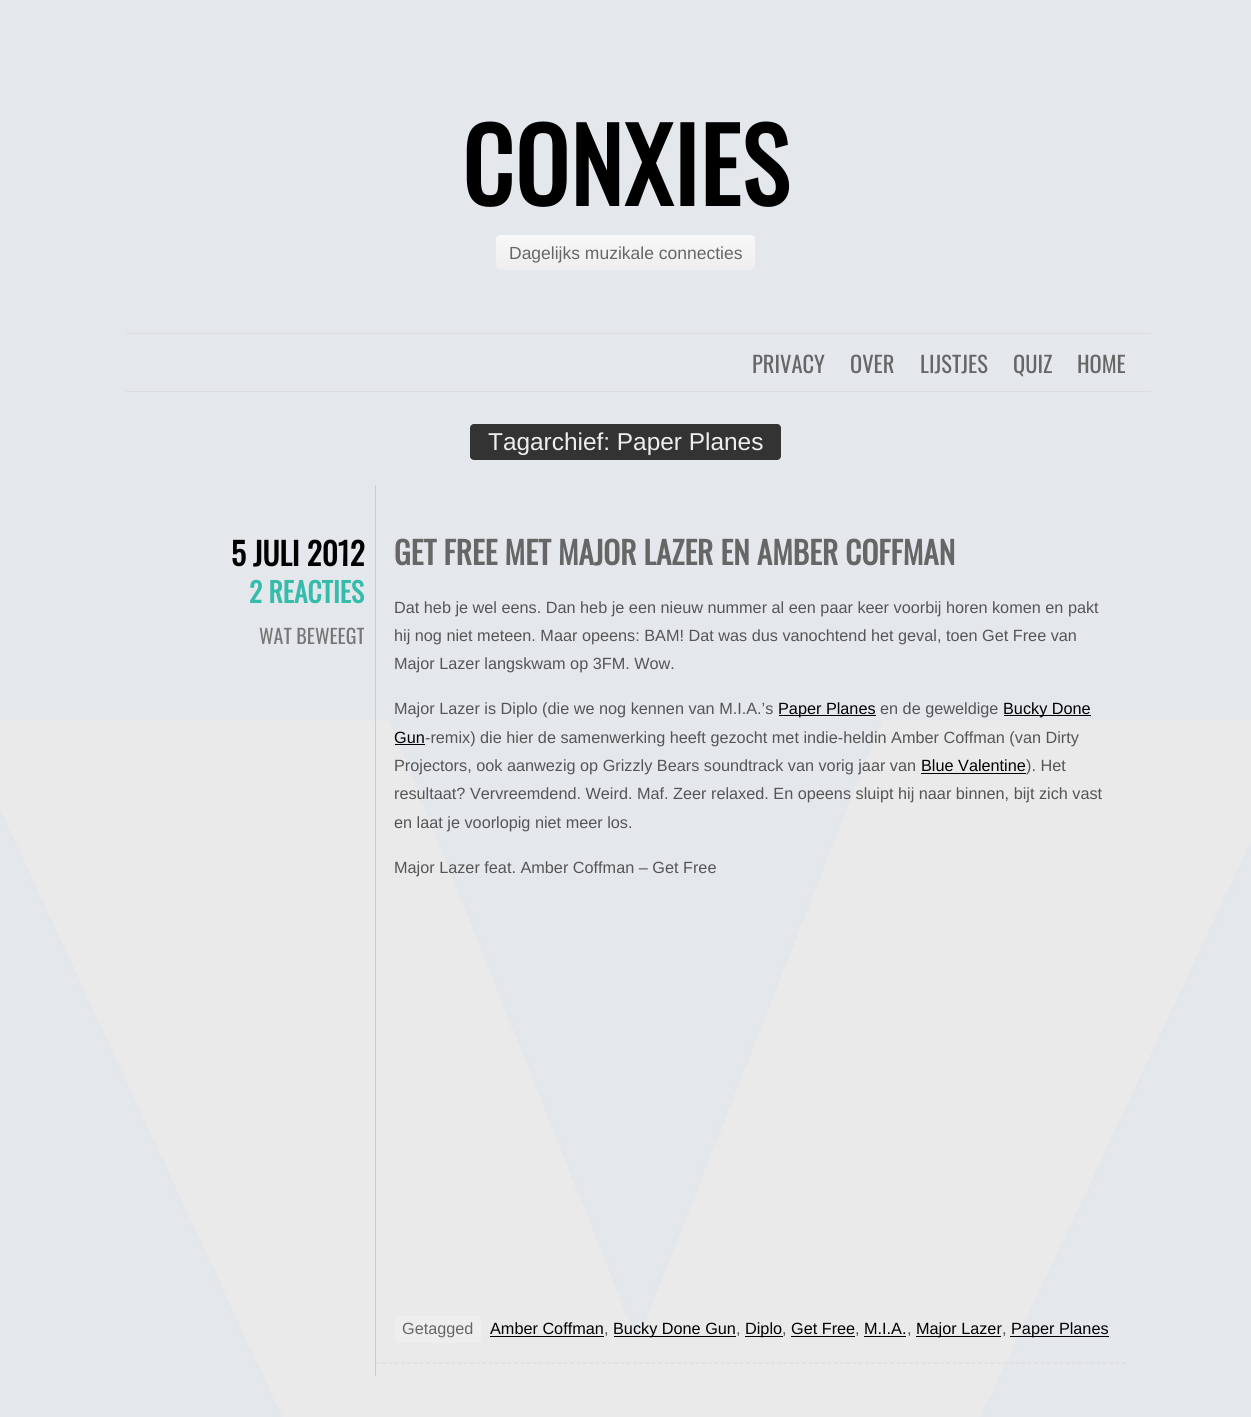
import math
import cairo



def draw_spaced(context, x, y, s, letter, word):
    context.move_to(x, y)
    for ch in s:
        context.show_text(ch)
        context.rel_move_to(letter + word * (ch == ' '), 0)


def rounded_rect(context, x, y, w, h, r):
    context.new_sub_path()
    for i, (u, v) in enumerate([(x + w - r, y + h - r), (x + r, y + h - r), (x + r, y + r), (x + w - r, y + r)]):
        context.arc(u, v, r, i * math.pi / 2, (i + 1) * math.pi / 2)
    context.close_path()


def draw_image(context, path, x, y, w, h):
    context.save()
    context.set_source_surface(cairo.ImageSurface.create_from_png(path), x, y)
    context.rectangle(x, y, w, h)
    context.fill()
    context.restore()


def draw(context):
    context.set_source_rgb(228 / 255, 231 / 255, 235 / 255)
    context.paint()
    draw_image(context, "images/1.png", 0, 720, 1251, 697)
    gradient = cairo.LinearGradient(626, 235, 626, 270)
    gradient.add_color_stop_rgba(0, 248 / 255, 248 / 255, 248 / 255, 1)
    gradient.add_color_stop_rgba(1, 238 / 255, 238 / 255, 238 / 255, 1)
    context.set_source(gradient)
    rounded_rect(context, 496, 235, 259, 35, 4)
    context.fill()
    context.set_source_rgb(221 / 255, 221 / 255, 221 / 255)
    context.rectangle(126, 333, 1025, 1)
    context.fill()
    context.rectangle(126, 391, 1025, 1)
    context.fill()
    context.set_source_rgb(51 / 255, 51 / 255, 51 / 255)
    rounded_rect(context, 470, 424, 311, 36, 4)
    context.fill()
    context.set_source_rgb(204 / 255, 204 / 255, 204 / 255)
    context.rectangle(375, 485, 1, 891)
    context.fill()
    context.new_path()
    context.move_to(376, 1363)
    context.line_to(1126, 1363)
    context.set_source_rgb(221 / 255, 221 / 255, 221 / 255)
    context.set_line_width(1.2)
    context.set_dash([3.75, 2.52])
    context.stroke()
    context.set_source_rgb(0, 0, 0)
    context.rectangle(779, 715, 97, 1)
    context.fill()
    context.rectangle(1004, 715, 87, 1)
    context.fill()
    context.rectangle(395, 744, 30, 1)
    context.fill()
    context.rectangle(921, 773, 105, 1)
    context.fill()
    context.set_source_rgb(238 / 255, 238 / 255, 238 / 255)
    rounded_rect(context, 395, 1316, 86, 27, 4)
    context.fill()
    context.set_source_rgb(0, 0, 0)
    context.rectangle(490, 1336, 114, 1)
    context.fill()
    context.rectangle(614, 1336, 122, 1)
    context.fill()
    context.rectangle(745, 1336, 38, 1)
    context.fill()
    context.rectangle(791, 1336, 64, 1)
    context.fill()
    context.rectangle(864, 1336, 42, 1)
    context.fill()
    context.rectangle(916, 1336, 85, 1)
    context.fill()
    context.rectangle(1010, 1336, 99, 1)
    context.fill()
    context.select_font_face("Oswald", cairo.FontSlant.NORMAL, cairo.FontWeight.BOLD)
    context.set_font_size(100)
    draw_spaced(context, 462, 206, "CONXIES", 1.25, 0)
    context.select_font_face("Liberation Sans")
    context.set_font_size(17.5)
    context.set_source_rgb(102 / 255, 102 / 255, 102 / 255)
    context.move_to(509, 259)
    context.show_text("Dagelijks muzikale connecties")
    context.select_font_face("Oswald")
    context.set_font_size(22.5)
    context.move_to(752, 373)
    context.show_text("PRIVACY")
    context.move_to(850, 373)
    context.show_text("OVER")
    context.move_to(920, 373)
    context.show_text("LIJSTJES")
    context.move_to(1013, 373)
    context.show_text("QUIZ")
    context.move_to(1077, 373)
    context.show_text("HOME")
    context.select_font_face("Liberation Sans")
    context.set_font_size(24.4)
    context.set_source_rgb(238 / 255, 238 / 255, 238 / 255)
    context.move_to(488, 450)
    context.show_text("Tagarchief: Paper Planes")
    context.select_font_face("Oswald", cairo.FontSlant.NORMAL, cairo.FontWeight.BOLD)
    context.set_font_size(31.25)
    context.set_source_rgb(0, 0, 0)
    context.move_to(231, 566)
    context.show_text("5 JULI 2012")
    context.set_font_size(27.5)
    context.set_source_rgb(54 / 255, 188 / 255, 171 / 255)
    context.move_to(249, 603)
    context.show_text("2 REACTIES")
    context.select_font_face("Oswald")
    context.set_font_size(20)
    context.set_source_rgb(119 / 255, 119 / 255, 119 / 255)
    context.move_to(259, 644)
    context.show_text("WAT BEWEEGT")
    context.select_font_face("Oswald", cairo.FontSlant.NORMAL, cairo.FontWeight.BOLD)
    context.set_font_size(31.25)
    context.set_source_rgb(102 / 255, 102 / 255, 102 / 255)
    context.move_to(394, 565)
    context.show_text("GET FREE MET MAJOR LAZER EN AMBER COFFMAN")
    context.select_font_face("Liberation Sans")
    context.set_font_size(16.25)
    context.set_source_rgb(85 / 255, 85 / 255, 85 / 255)
    context.move_to(394, 613)
    context.show_text("Dat heb je wel eens. Dan heb je een nieuw nummer al een paar keer voorbij horen komen en pakt")
    context.move_to(394, 641)
    context.show_text("hij nog niet meteen. Maar opeens: BAM! Dat was dus vanochtend het geval, toen Get Free van")
    context.move_to(394, 669)
    context.show_text("Major Lazer langskwam op 3FM. Wow.")
    context.move_to(394, 714)
    context.show_text("Major Lazer is Diplo (die we nog kennen van M.I.A.’s")
    context.set_source_rgb(0, 0, 0)
    context.move_to(778, 714)
    context.show_text("Paper Planes")
    context.set_source_rgb(85 / 255, 85 / 255, 85 / 255)
    context.move_to(880, 714)
    context.show_text("en de geweldige")
    context.set_source_rgb(0, 0, 0)
    context.move_to(1003, 714)
    context.show_text("Bucky Done")
    context.move_to(394, 743)
    context.show_text("Gun")
    context.set_source_rgb(85 / 255, 85 / 255, 85 / 255)
    context.move_to(425, 743)
    context.show_text("-remix) die hier de samenwerking heeft gezocht met indie-heldin Amber Coffman (van Dirty")
    context.move_to(394, 771)
    context.show_text("Projectors, ook aanwezig op Grizzly Bears soundtrack van vorig jaar van")
    context.set_source_rgb(0, 0, 0)
    context.move_to(921, 771)
    context.show_text("Blue Valentine")
    context.set_source_rgb(85 / 255, 85 / 255, 85 / 255)
    context.move_to(1026, 771)
    context.show_text("). Het")
    context.move_to(394, 799)
    context.show_text("resultaat? Vervreemdend. Weird. Maf. Zeer relaxed. En opeens sluipt hij naar binnen, bijt zich vast")
    context.move_to(394, 828)
    context.show_text("en laat je voorlopig niet meer los.")
    context.move_to(394, 873)
    context.show_text("Major Lazer feat. Amber Coffman – Get Free")
    context.set_source_rgb(102 / 255, 102 / 255, 102 / 255)
    context.move_to(402, 1334)
    context.show_text("Getagged")
    context.set_source_rgb(0, 0, 0)
    context.move_to(490, 1334)
    context.show_text("Amber Coffman")
    context.set_source_rgb(85 / 255, 85 / 255, 85 / 255)
    context.move_to(604, 1334)
    context.show_text(",")
    context.set_source_rgb(0, 0, 0)
    context.move_to(613, 1334)
    context.show_text("Bucky Done Gun")
    context.set_source_rgb(85 / 255, 85 / 255, 85 / 255)
    context.move_to(736, 1334)
    context.show_text(",")
    context.set_source_rgb(0, 0, 0)
    context.move_to(745, 1334)
    context.show_text("Diplo")
    context.set_source_rgb(85 / 255, 85 / 255, 85 / 255)
    context.move_to(782, 1334)
    context.show_text(",")
    context.set_source_rgb(0, 0, 0)
    context.move_to(791, 1334)
    context.show_text("Get Free")
    context.set_source_rgb(85 / 255, 85 / 255, 85 / 255)
    context.move_to(855, 1334)
    context.show_text(",")
    context.set_source_rgb(0, 0, 0)
    context.move_to(864, 1334)
    context.show_text("M.I.A.")
    context.set_source_rgb(85 / 255, 85 / 255, 85 / 255)
    context.move_to(907, 1334)
    context.show_text(",")
    context.set_source_rgb(0, 0, 0)
    context.move_to(916, 1334)
    context.show_text("Major Lazer")
    context.set_source_rgb(85 / 255, 85 / 255, 85 / 255)
    context.move_to(1002, 1334)
    context.show_text(",")
    context.set_source_rgb(0, 0, 0)
    context.move_to(1011, 1334)
    context.show_text("Paper Planes")


surface = cairo.ImageSurface(cairo.Format.RGB24, 1251, 1417)
context = cairo.Context(surface)
options = cairo.FontOptions()
options.set_hint_metrics(cairo.HintMetrics.OFF)
options.set_hint_style(cairo.HintStyle.NONE)
context.set_font_options(options)
context.set_miter_limit(4)
draw(context)
surface.write_to_png("out.png")
